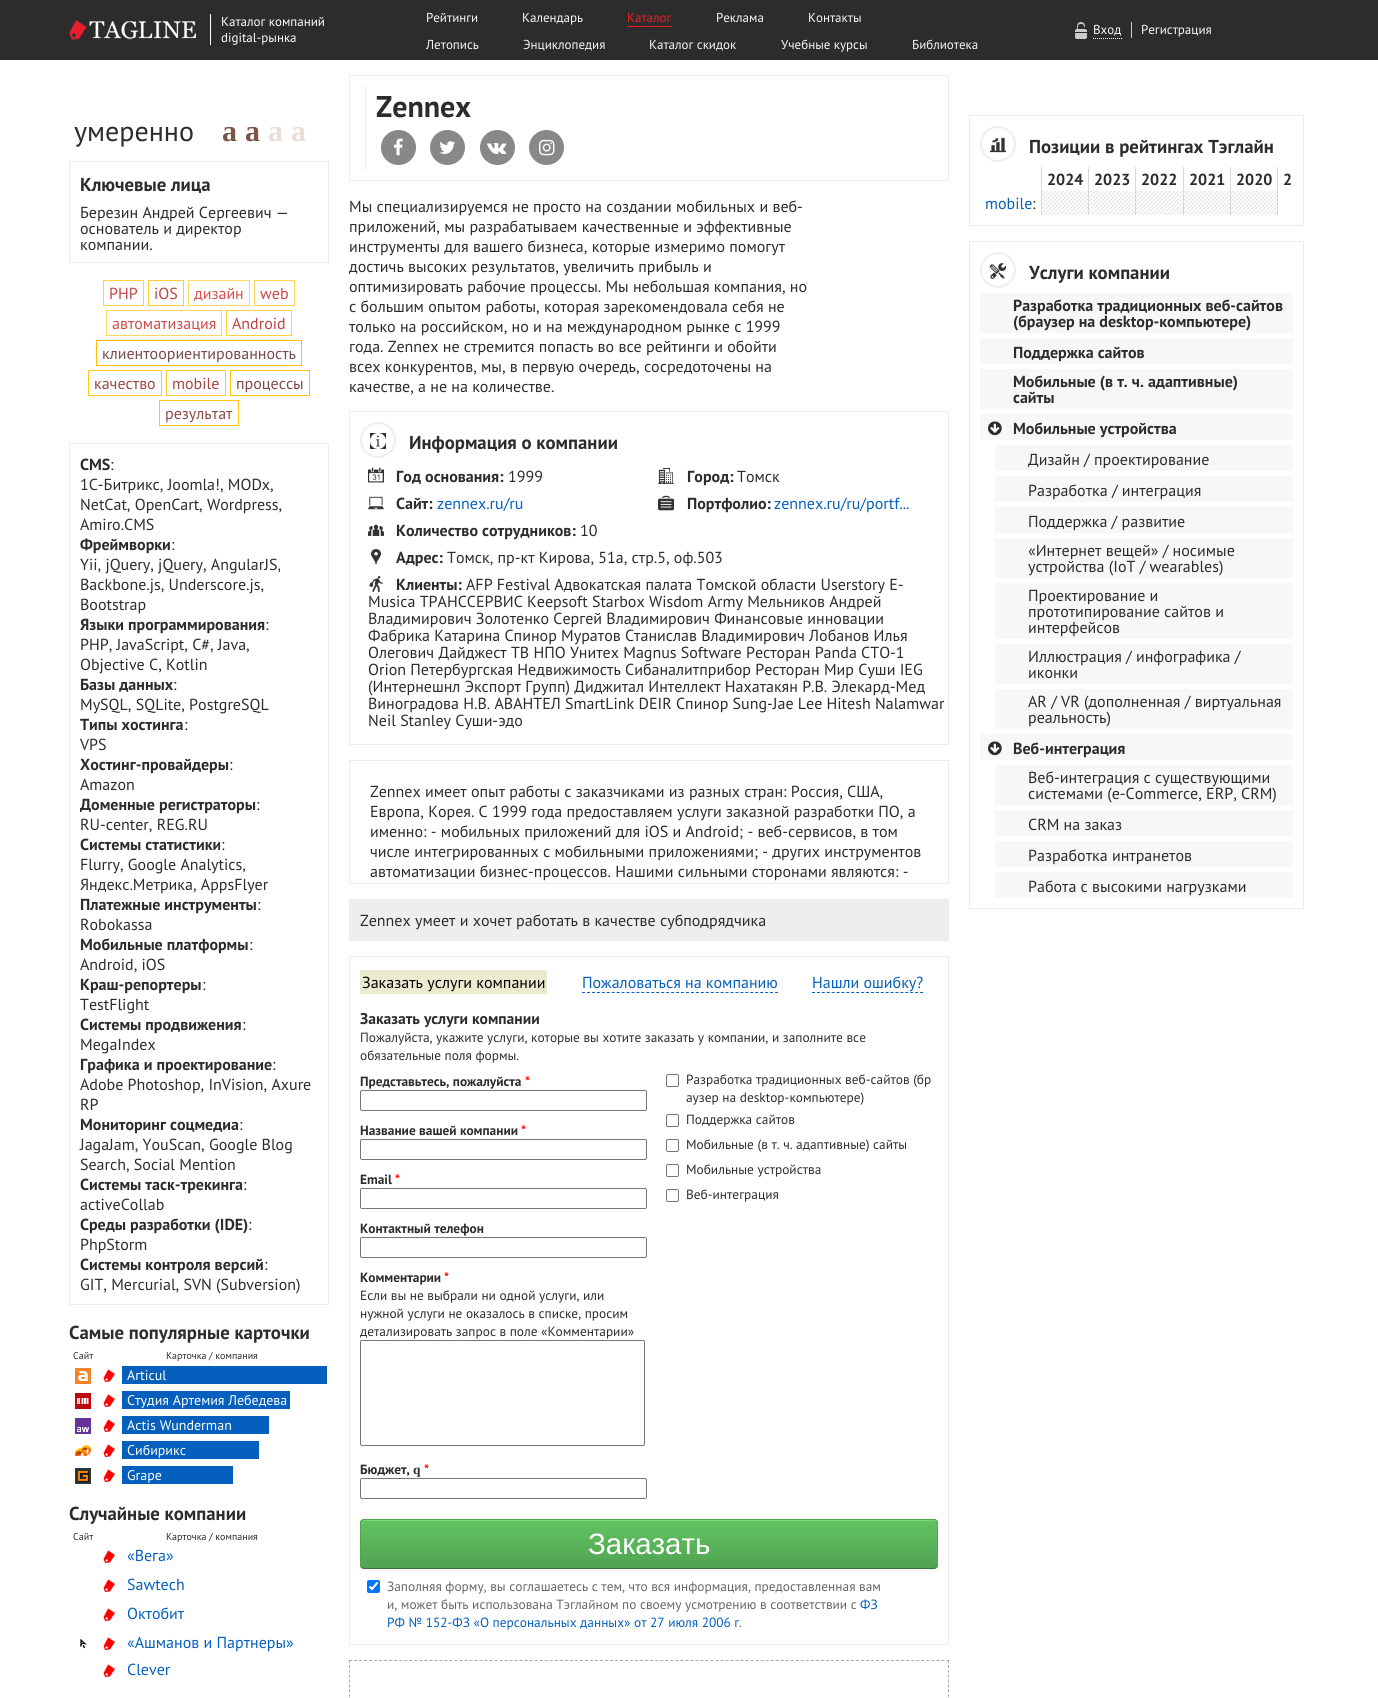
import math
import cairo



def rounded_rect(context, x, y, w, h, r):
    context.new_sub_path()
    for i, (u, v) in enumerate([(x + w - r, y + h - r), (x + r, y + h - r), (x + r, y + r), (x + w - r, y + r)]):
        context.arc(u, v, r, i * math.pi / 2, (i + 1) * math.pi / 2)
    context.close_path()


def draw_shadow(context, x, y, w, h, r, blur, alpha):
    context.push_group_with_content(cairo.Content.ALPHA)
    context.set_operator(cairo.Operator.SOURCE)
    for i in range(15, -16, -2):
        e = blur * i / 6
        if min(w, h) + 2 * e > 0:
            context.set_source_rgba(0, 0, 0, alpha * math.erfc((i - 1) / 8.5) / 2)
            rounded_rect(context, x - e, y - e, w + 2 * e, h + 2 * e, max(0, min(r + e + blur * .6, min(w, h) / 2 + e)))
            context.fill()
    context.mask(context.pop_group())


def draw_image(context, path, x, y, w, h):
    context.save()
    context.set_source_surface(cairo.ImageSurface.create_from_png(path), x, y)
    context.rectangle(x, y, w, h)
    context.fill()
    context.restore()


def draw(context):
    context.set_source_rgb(1, 1, 1)
    context.paint()
    context.set_source_rgb(44 / 255, 44 / 255, 44 / 255)
    context.rectangle(0, 0, 1378, 60)
    context.fill()
    draw_image(context, "images/1.png", 69, 20, 127, 20)
    context.set_source_rgb(1, 1, 1)
    context.rectangle(210, 14, 1, 31)
    context.fill()
    context.set_source_rgb(234 / 255, 29 / 255, 42 / 255)
    context.rectangle(627, 26, 45, 1)
    context.fill()
    draw_image(context, "images/2.png", 1075, 22, 12, 17)
    context.new_path()
    context.move_to(1093, 38.5)
    context.line_to(1122, 38.5)
    context.set_source_rgb(247 / 255, 247 / 255, 247 / 255)
    context.set_line_width(1)
    context.set_dash([1, 1])
    context.stroke()
    context.set_source_rgb(204 / 255, 204 / 255, 204 / 255)
    context.rectangle(1131, 22, 1, 16)
    context.fill()
    context.rectangle(69.5, 161.5, 259, 101)
    context.set_source_rgb(236 / 255, 236 / 255, 236 / 255)
    context.set_dash([])
    context.stroke()
    context.rectangle(103.5, 280.5, 40, 25)
    context.set_source_rgb(1, 209 / 255, 71 / 255)
    context.stroke()
    context.rectangle(148.5, 280.5, 35, 25)
    context.set_source_rgb(1, 204 / 255, 51 / 255)
    context.stroke()
    context.rectangle(188.5, 280.5, 61, 25)
    context.set_source_rgb(1, 217 / 255, 102 / 255)
    context.stroke()
    context.rectangle(254.5, 280.5, 40, 25)
    context.set_source_rgb(1, 212 / 255, 82 / 255)
    context.stroke()
    context.rectangle(106.5, 310.5, 115, 25)
    context.set_source_rgb(1, 214 / 255, 92 / 255)
    context.stroke()
    context.rectangle(226.5, 310.5, 65, 25)
    context.set_source_rgb(1, 207 / 255, 61 / 255)
    context.stroke()
    context.rectangle(96.5, 340.5, 205, 25)
    context.set_source_rgb(1, 191 / 255, 0)
    context.stroke()
    context.rectangle(88.5, 370.5, 73, 25)
    context.set_source_rgb(1, 199 / 255, 31 / 255)
    context.stroke()
    context.rectangle(166.5, 370.5, 59, 25)
    context.set_source_rgb(1, 201 / 255, 41 / 255)
    context.stroke()
    context.rectangle(230.5, 370.5, 79, 25)
    context.set_source_rgb(1, 194 / 255, 10 / 255)
    context.stroke()
    context.rectangle(159.5, 400.5, 79, 25)
    context.set_source_rgb(1, 196 / 255, 20 / 255)
    context.stroke()
    context.rectangle(69.5, 443.5, 259, 861)
    context.set_source_rgb(236 / 255, 236 / 255, 236 / 255)
    context.stroke()
    draw_image(context, "images/3.png", 75, 1368, 16, 16)
    draw_image(context, "images/4.png", 103, 1369, 12, 13)
    context.set_source_rgb(4 / 255, 95 / 255, 189 / 255)
    context.rectangle(122, 1366, 205, 18)
    context.fill()
    draw_image(context, "images/5.png", 75, 1393, 16, 16)
    draw_image(context, "images/4.png", 103, 1394, 12, 13)
    context.rectangle(122, 1391, 168, 18)
    context.fill()
    draw_image(context, "images/6.png", 75, 1418, 16, 16)
    draw_image(context, "images/4.png", 103, 1419, 12, 13)
    context.rectangle(122, 1416, 147, 18)
    context.fill()
    draw_image(context, "images/7.png", 75, 1445, 16, 11)
    draw_image(context, "images/4.png", 103, 1444, 12, 13)
    context.rectangle(122, 1441, 137, 18)
    context.fill()
    draw_image(context, "images/8.png", 75, 1468, 16, 16)
    draw_image(context, "images/4.png", 103, 1469, 12, 13)
    context.rectangle(122, 1466, 111, 18)
    context.fill()
    draw_image(context, "images/4.png", 103, 1550, 12, 13)
    draw_image(context, "images/4.png", 103, 1579, 12, 13)
    draw_image(context, "images/4.png", 103, 1608, 12, 13)
    draw_image(context, "images/9.png", 80, 1638, 7, 11)
    draw_image(context, "images/4.png", 103, 1637, 12, 13)
    draw_image(context, "images/4.png", 103, 1664, 12, 13)
    context.rectangle(349.5, 75.5, 599, 105)
    context.set_source_rgb(236 / 255, 236 / 255, 236 / 255)
    context.stroke()
    context.rectangle(365, 86, 1, 84)
    context.fill()
    context.set_source_rgb(136 / 255, 136 / 255, 136 / 255)
    context.arc(398.5, 147.5, 17.5, 0, 2 * math.pi)
    context.fill()
    draw_image(context, "images/10.png", 393, 138, 10, 18)
    context.arc(447.5, 147.5, 17.5, 0, 2 * math.pi)
    context.fill()
    draw_image(context, "images/11.png", 439, 141, 17, 13)
    context.arc(497.5, 147.5, 17.5, 0, 2 * math.pi)
    context.fill()
    draw_image(context, "images/12.png", 487, 143, 20, 11)
    context.arc(546.5, 147.5, 17.5, 0, 2 * math.pi)
    context.fill()
    draw_image(context, "images/13.png", 539, 139, 16, 17)
    context.rectangle(349.5, 411.5, 599, 333)
    context.set_source_rgb(236 / 255, 236 / 255, 236 / 255)
    context.stroke()
    context.arc(378, 440, 17, 0, 2 * math.pi)
    context.set_source_rgb(238 / 255, 238 / 255, 238 / 255)
    context.set_line_width(2)
    context.stroke()
    draw_image(context, "images/14.png", 370, 433, 16, 16)
    draw_image(context, "images/15.png", 368, 467, 16, 16)
    draw_image(context, "images/16.png", 658, 468, 16, 16)
    draw_image(context, "images/17.png", 368, 496, 16, 14)
    draw_image(context, "images/18.png", 658, 495, 16, 16)
    draw_image(context, "images/19.png", 368, 524, 16, 12)
    draw_image(context, "images/20.png", 371, 549, 10, 16)
    draw_image(context, "images/21.png", 369, 576, 14, 16)
    context.rectangle(349.5, 760.5, 599, 123)
    context.set_source_rgb(236 / 255, 236 / 255, 236 / 255)
    context.set_line_width(1)
    context.stroke()
    context.set_source_rgb(238 / 255, 238 / 255, 238 / 255)
    context.rectangle(349.5, 899.5, 599, 41)
    context.fill_preserve()
    context.set_source_rgb(236 / 255, 236 / 255, 236 / 255)
    context.stroke()
    context.rectangle(349.5, 956.5, 599, 688)
    context.stroke()
    context.set_source_rgb(235 / 255, 235 / 255, 207 / 255)
    context.rectangle(360, 970, 187, 24)
    context.fill()
    context.new_path()
    context.move_to(582, 992.5)
    context.line_to(778, 992.5)
    context.set_source_rgb(4 / 255, 95 / 255, 189 / 255)
    context.set_dash([3, 1.95])
    context.stroke()
    context.new_path()
    context.move_to(812, 992.5)
    context.line_to(923, 992.5)
    context.set_dash([3, 1.91])
    context.stroke()
    rounded_rect(context, 360.5, 1090.5, 286, 20, 1.5)
    context.set_source_rgb(118 / 255, 118 / 255, 118 / 255)
    context.set_dash([])
    context.stroke()
    rounded_rect(context, 360.5, 1139.5, 286, 20, 1.5)
    context.stroke()
    rounded_rect(context, 360.5, 1188.5, 286, 20, 1.5)
    context.stroke()
    rounded_rect(context, 360.5, 1237.5, 286, 20, 1.5)
    context.stroke()
    rounded_rect(context, 360.5, 1340.5, 284, 105, 1.5)
    context.stroke()
    rounded_rect(context, 360.5, 1478.5, 286, 20, 1.5)
    context.stroke()
    rounded_rect(context, 666.5, 1074.5, 12, 12, 1.5)
    context.stroke()
    rounded_rect(context, 666.5, 1114.5, 12, 12, 1.5)
    context.stroke()
    rounded_rect(context, 666.5, 1139.5, 12, 12, 1.5)
    context.stroke()
    rounded_rect(context, 666.5, 1164.5, 12, 12, 1.5)
    context.stroke()
    rounded_rect(context, 666.5, 1189.5, 12, 12, 1.5)
    context.stroke()
    context.set_source_rgb(0, 0, 0)
    draw_shadow(context, 360, 1520, 578, 50, 4, 1, 0.05)
    context.set_source_rgb(91 / 255, 183 / 255, 91 / 255)
    rounded_rect(context, 360, 1519, 578, 50, 4)
    context.fill()
    context.save()
    rounded_rect(context, 360, 1519, 578, 50, 4)
    context.clip()
    gradient = cairo.LinearGradient(649, 1520, 649, 1568)
    gradient.add_color_stop_rgba(0, 98 / 255, 196 / 255, 98 / 255, 1)
    gradient.add_color_stop_rgba(1, 81 / 255, 163 / 255, 81 / 255, 1)
    context.set_source(gradient)
    context.rectangle(360, 1520, 578, 48)
    context.fill()
    context.restore()
    context.set_source_rgb(129 / 255, 208 / 255, 129 / 255)
    context.new_path()
    context.move_to(364, 1521)
    context.line_to(934, 1521)
    context.curve_to(936, 1521, 937, 1522, 937, 1524)
    context.line_to(937, 1523)
    context.curve_to(937, 1521, 936, 1520, 934, 1520)
    context.line_to(364, 1520)
    context.curve_to(362, 1520, 361, 1521, 361, 1523)
    context.line_to(361, 1524)
    context.curve_to(361, 1522, 362, 1521, 364, 1521)
    context.close_path()
    context.fill()
    context.new_path()
    context.move_to(936.5, 1567.5)
    context.line_to(934, 1568.5)
    context.line_to(364, 1568.5)
    context.line_to(361.5, 1567.5)
    context.set_source_rgb(56 / 255, 112 / 255, 56 / 255)
    context.stroke()
    context.new_path()
    context.move_to(361.5, 1567.5)
    context.line_to(360.5, 1565.5)
    context.line_to(360.5, 1522)
    context.curve_to(361, 1521, 362, 1520, 363.5, 1519.5)
    context.line_to(934.5, 1519.5)
    context.curve_to(936, 1520, 937, 1521, 937.5, 1522)
    context.line_to(937.5, 1565.5)
    context.line_to(936.5, 1567.5)
    context.set_source_rgb(81 / 255, 163 / 255, 81 / 255)
    context.stroke()
    context.set_source_rgb(0, 117 / 255, 1)
    rounded_rect(context, 367, 1580, 13, 13, 2)
    context.fill()
    context.new_path()
    context.move_to(369.5, 1586.5)
    context.line_to(372, 1589)
    context.line_to(377.5, 1582.5)
    context.set_source_rgb(1, 1, 1)
    context.set_line_width(2.1)
    context.stroke()
    context.new_path()
    context.move_to(349, 1660.5)
    context.line_to(949, 1660.5)
    context.set_source_rgb(170 / 255, 170 / 255, 170 / 255)
    context.set_line_width(1)
    context.set_dash([3, 2.02])
    context.stroke()
    context.new_path()
    context.move_to(948.5, 1660)
    context.line_to(948.5, 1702)
    context.set_dash([3, 1.88])
    context.stroke()
    context.new_path()
    context.move_to(349.5, 1660)
    context.line_to(349.5, 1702)
    context.stroke()
    context.rectangle(969.5, 115.5, 334, 110)
    context.set_source_rgb(236 / 255, 236 / 255, 236 / 255)
    context.set_dash([])
    context.stroke()
    context.arc(998, 144, 17, 0, 2 * math.pi)
    context.set_source_rgb(238 / 255, 238 / 255, 238 / 255)
    context.set_line_width(2)
    context.stroke()
    draw_image(context, "images/22.png", 990, 137, 16, 16)
    draw_image(context, "images/23.png", 1042, 191, 46, 24)
    context.set_source_rgb(215 / 255, 215 / 255, 215 / 255)
    context.rectangle(1041, 167, 1, 48)
    context.fill()
    draw_image(context, "images/24.png", 1089, 191, 46, 24)
    context.rectangle(1088, 167, 1, 48)
    context.fill()
    draw_image(context, "images/25.png", 1136, 191, 47, 24)
    context.rectangle(1135, 167, 1, 48)
    context.fill()
    draw_image(context, "images/23.png", 1184, 191, 46, 24)
    context.rectangle(1183, 167, 1, 48)
    context.fill()
    draw_image(context, "images/24.png", 1231, 191, 46, 24)
    context.rectangle(1230, 167, 1, 48)
    context.fill()
    context.rectangle(1277, 167, 1, 48)
    context.fill()
    context.rectangle(969.5, 241.5, 334, 667)
    context.set_source_rgb(236 / 255, 236 / 255, 236 / 255)
    context.set_line_width(1)
    context.stroke()
    context.arc(998, 270, 17, 0, 2 * math.pi)
    context.set_source_rgb(238 / 255, 238 / 255, 238 / 255)
    context.set_line_width(2)
    context.stroke()
    draw_image(context, "images/26.png", 990, 263, 16, 16)
    context.set_source_rgb(247 / 255, 247 / 255, 247 / 255)
    context.rectangle(980, 293, 313, 40)
    context.fill()
    context.rectangle(980, 338, 313, 26)
    context.fill()
    context.rectangle(980, 369, 313, 40)
    context.fill()
    context.rectangle(980, 414, 313, 26)
    context.fill()
    draw_image(context, "images/27.png", 988, 421, 14, 15)
    context.rectangle(995, 445, 298, 26)
    context.fill()
    context.rectangle(995, 476, 298, 26)
    context.fill()
    context.rectangle(995, 507, 298, 26)
    context.fill()
    context.rectangle(995, 538, 298, 40)
    context.fill()
    context.rectangle(995, 583, 298, 56)
    context.fill()
    context.rectangle(995, 644, 298, 40)
    context.fill()
    context.rectangle(995, 689, 298, 40)
    context.fill()
    context.rectangle(980, 734, 313, 26)
    context.fill()
    draw_image(context, "images/27.png", 988, 741, 14, 15)
    context.rectangle(995, 765, 298, 40)
    context.fill()
    context.rectangle(995, 810, 298, 26)
    context.fill()
    context.rectangle(995, 841, 298, 26)
    context.fill()
    context.rectangle(995, 872, 298, 26)
    context.fill()
    context.select_font_face("PT Sans")
    context.set_font_size(13)
    context.set_source_rgb(1, 1, 1)
    context.move_to(221, 26)
    context.show_text("Каталог компаний")
    context.move_to(221, 42)
    context.show_text("digital-рынка")
    context.set_source_rgb(247 / 255, 247 / 255, 247 / 255)
    context.move_to(426, 22)
    context.show_text("Рейтинги")
    context.move_to(522, 22)
    context.show_text("Календарь")
    context.set_source_rgb(234 / 255, 29 / 255, 42 / 255)
    context.move_to(627, 22)
    context.show_text("Каталог")
    context.set_source_rgb(247 / 255, 247 / 255, 247 / 255)
    context.move_to(716, 22)
    context.show_text("Реклама")
    context.move_to(808, 22)
    context.show_text("Контакты")
    context.move_to(426, 49)
    context.show_text("Летопись")
    context.move_to(523, 49)
    context.show_text("Энциклопедия")
    context.move_to(649, 49)
    context.show_text("Каталог скидок")
    context.move_to(781, 49)
    context.show_text("Учебные курсы")
    context.move_to(912, 49)
    context.show_text("Библиотека")
    context.move_to(1093, 34)
    context.show_text("Вход")
    context.move_to(1141, 34)
    context.show_text("Регистрация")
    context.set_font_size(28)
    context.set_source_rgb(44 / 255, 44 / 255, 44 / 255)
    context.move_to(74, 141)
    context.show_text("умеренно")
    context.select_font_face("Liberation Serif", cairo.FontSlant.NORMAL, cairo.FontWeight.BOLD)
    context.set_font_size(30)
    context.set_source_rgb(121 / 255, 86 / 255, 73 / 255)
    context.move_to(222, 141)
    context.show_text("a")
    context.move_to(245, 141)
    context.show_text("a")
    context.set_source_rgb(232 / 255, 221 / 255, 217 / 255)
    context.move_to(268, 141)
    context.show_text("a")
    context.move_to(291, 141)
    context.show_text("a")
    context.select_font_face("PT Sans", cairo.FontSlant.NORMAL, cairo.FontWeight.BOLD)
    context.set_font_size(18.75)
    context.set_source_rgb(44 / 255, 44 / 255, 44 / 255)
    context.move_to(80, 191)
    context.show_text("Ключевые лица")
    context.select_font_face("PT Sans")
    context.set_font_size(16)
    context.move_to(80, 218)
    context.show_text("Березин Андрей Сергеевич —")
    context.move_to(80, 234)
    context.show_text("основатель и директор")
    context.move_to(80, 250)
    context.show_text("компании.")
    context.set_source_rgb(196 / 255, 69 / 255, 69 / 255)
    context.move_to(109, 299)
    context.show_text("PHP")
    context.set_source_rgb(176 / 255, 69 / 255, 69 / 255)
    context.move_to(154, 299)
    context.show_text("iOS")
    context.set_source_rgb(216 / 255, 79 / 255, 79 / 255)
    context.move_to(194, 299)
    context.show_text("дизайн")
    context.set_source_rgb(203 / 255, 72 / 255, 72 / 255)
    context.move_to(260, 299)
    context.show_text("web")
    context.set_source_rgb(210 / 255, 75 / 255, 75 / 255)
    context.move_to(112, 329)
    context.show_text("автоматизация")
    context.set_source_rgb(189 / 255, 66 / 255, 66 / 255)
    context.move_to(232, 329)
    context.show_text("Android")
    context.set_source_rgb(120 / 255, 74 / 255, 74 / 255)
    context.move_to(102, 359)
    context.show_text("клиентоориентированность")
    context.set_source_rgb(153 / 255, 72 / 255, 72 / 255)
    context.move_to(94, 389)
    context.show_text("качество")
    context.set_source_rgb(164 / 255, 70 / 255, 70 / 255)
    context.move_to(172, 389)
    context.show_text("mobile")
    context.set_source_rgb(131 / 255, 73 / 255, 73 / 255)
    context.move_to(236, 389)
    context.show_text("процессы")
    context.set_source_rgb(141 / 255, 73 / 255, 73 / 255)
    context.move_to(165, 419)
    context.show_text("результат")
    context.select_font_face("PT Sans", cairo.FontSlant.NORMAL, cairo.FontWeight.BOLD)
    context.set_source_rgb(44 / 255, 44 / 255, 44 / 255)
    context.move_to(80, 470)
    context.show_text("CMS")
    context.select_font_face("PT Sans")
    context.move_to(110, 470)
    context.show_text(":")
    context.move_to(80, 490)
    context.show_text("1С-Битрикс, Joomla!, MODx,")
    context.move_to(80, 510)
    context.show_text("NetCat, OpenCart, Wordpress,")
    context.move_to(80, 530)
    context.show_text("Amiro.CMS")
    context.select_font_face("PT Sans", cairo.FontSlant.NORMAL, cairo.FontWeight.BOLD)
    context.move_to(80, 550)
    context.show_text("Фреймворки")
    context.select_font_face("PT Sans")
    context.move_to(171, 550)
    context.show_text(":")
    context.move_to(80, 570)
    context.show_text("Yii, jQuery, jQuery, AngularJS,")
    context.move_to(80, 590)
    context.show_text("Backbone.js, Underscore.js,")
    context.move_to(80, 610)
    context.show_text("Bootstrap")
    context.select_font_face("PT Sans", cairo.FontSlant.NORMAL, cairo.FontWeight.BOLD)
    context.move_to(80, 630)
    context.show_text("Языки программирования")
    context.select_font_face("PT Sans")
    context.move_to(265, 630)
    context.show_text(":")
    context.move_to(80, 650)
    context.show_text("PHP, JavaScript, C#, Java,")
    context.move_to(80, 670)
    context.show_text("Objective C, Kotlin")
    context.select_font_face("PT Sans", cairo.FontSlant.NORMAL, cairo.FontWeight.BOLD)
    context.move_to(80, 690)
    context.show_text("Базы данных")
    context.select_font_face("PT Sans")
    context.move_to(173, 690)
    context.show_text(":")
    context.move_to(80, 710)
    context.show_text("MySQL, SQLite, PostgreSQL")
    context.select_font_face("PT Sans", cairo.FontSlant.NORMAL, cairo.FontWeight.BOLD)
    context.move_to(80, 730)
    context.show_text("Типы хостинга")
    context.select_font_face("PT Sans")
    context.move_to(184, 730)
    context.show_text(":")
    context.move_to(80, 750)
    context.show_text("VPS")
    context.select_font_face("PT Sans", cairo.FontSlant.NORMAL, cairo.FontWeight.BOLD)
    context.move_to(80, 770)
    context.show_text("Хостинг-провайдеры")
    context.select_font_face("PT Sans")
    context.move_to(229, 770)
    context.show_text(":")
    context.move_to(80, 790)
    context.show_text("Amazon")
    context.select_font_face("PT Sans", cairo.FontSlant.NORMAL, cairo.FontWeight.BOLD)
    context.move_to(80, 810)
    context.show_text("Доменные регистраторы")
    context.select_font_face("PT Sans")
    context.move_to(256, 810)
    context.show_text(":")
    context.move_to(80, 830)
    context.show_text("RU-center, REG.RU")
    context.select_font_face("PT Sans", cairo.FontSlant.NORMAL, cairo.FontWeight.BOLD)
    context.move_to(80, 850)
    context.show_text("Системы статистики")
    context.select_font_face("PT Sans")
    context.move_to(221, 850)
    context.show_text(":")
    context.move_to(80, 870)
    context.show_text("Flurry, Google Analytics,")
    context.move_to(80, 890)
    context.show_text("Яндекс.Метрика, AppsFlyer")
    context.select_font_face("PT Sans", cairo.FontSlant.NORMAL, cairo.FontWeight.BOLD)
    context.move_to(80, 910)
    context.show_text("Платежные инструменты")
    context.select_font_face("PT Sans")
    context.move_to(257, 910)
    context.show_text(":")
    context.move_to(80, 930)
    context.show_text("Robokassa")
    context.select_font_face("PT Sans", cairo.FontSlant.NORMAL, cairo.FontWeight.BOLD)
    context.move_to(80, 950)
    context.show_text("Мобильные платформы")
    context.select_font_face("PT Sans")
    context.move_to(249, 950)
    context.show_text(":")
    context.move_to(80, 970)
    context.show_text("Android, iOS")
    context.select_font_face("PT Sans", cairo.FontSlant.NORMAL, cairo.FontWeight.BOLD)
    context.move_to(80, 990)
    context.show_text("Краш-репортеры")
    context.select_font_face("PT Sans")
    context.move_to(202, 990)
    context.show_text(":")
    context.move_to(80, 1010)
    context.show_text("TestFlight")
    context.select_font_face("PT Sans", cairo.FontSlant.NORMAL, cairo.FontWeight.BOLD)
    context.move_to(80, 1030)
    context.show_text("Системы продвижения")
    context.select_font_face("PT Sans")
    context.move_to(242, 1030)
    context.show_text(":")
    context.move_to(80, 1050)
    context.show_text("MegaIndex")
    context.select_font_face("PT Sans", cairo.FontSlant.NORMAL, cairo.FontWeight.BOLD)
    context.move_to(80, 1070)
    context.show_text("Графика и проектирование")
    context.select_font_face("PT Sans")
    context.move_to(272, 1070)
    context.show_text(":")
    context.move_to(80, 1090)
    context.show_text("Adobe Photoshop, InVision, Axure")
    context.move_to(80, 1110)
    context.show_text("RP")
    context.select_font_face("PT Sans", cairo.FontSlant.NORMAL, cairo.FontWeight.BOLD)
    context.move_to(80, 1130)
    context.show_text("Мониторинг соцмедиа")
    context.select_font_face("PT Sans")
    context.move_to(239, 1130)
    context.show_text(":")
    context.move_to(80, 1150)
    context.show_text("JagaJam, YouScan, Google Blog")
    context.move_to(80, 1170)
    context.show_text("Search, Social Mention")
    context.select_font_face("PT Sans", cairo.FontSlant.NORMAL, cairo.FontWeight.BOLD)
    context.move_to(80, 1190)
    context.show_text("Системы таск-трекинга")
    context.select_font_face("PT Sans")
    context.move_to(243, 1190)
    context.show_text(":")
    context.move_to(80, 1210)
    context.show_text("activeCollab")
    context.select_font_face("PT Sans", cairo.FontSlant.NORMAL, cairo.FontWeight.BOLD)
    context.move_to(80, 1230)
    context.show_text("Среды разработки (IDE)")
    context.select_font_face("PT Sans")
    context.move_to(248, 1230)
    context.show_text(":")
    context.move_to(80, 1250)
    context.show_text("PhpStorm")
    context.select_font_face("PT Sans", cairo.FontSlant.NORMAL, cairo.FontWeight.BOLD)
    context.move_to(80, 1270)
    context.show_text("Системы контроля версий")
    context.select_font_face("PT Sans")
    context.move_to(264, 1270)
    context.show_text(":")
    context.move_to(80, 1290)
    context.show_text("GIT, Mercurial, SVN (Subversion)")
    context.select_font_face("PT Sans", cairo.FontSlant.NORMAL, cairo.FontWeight.BOLD)
    context.set_font_size(18.75)
    context.move_to(69, 1339)
    context.show_text("Самые популярные карточки")
    context.select_font_face("PT Sans")
    context.set_font_size(10)
    context.move_to(73, 1359)
    context.show_text("Сайт")
    context.move_to(166, 1359)
    context.show_text("Карточка / компания")
    context.set_font_size(14)
    context.set_source_rgb(1, 1, 1)
    context.move_to(127, 1380)
    context.show_text("Articul")
    context.move_to(127, 1405)
    context.show_text("Студия Артемия Лебедева")
    context.move_to(127, 1430)
    context.show_text("Actis Wunderman")
    context.move_to(127, 1455)
    context.show_text("Сибирикс")
    context.move_to(127, 1480)
    context.show_text("Grape")
    context.select_font_face("PT Sans", cairo.FontSlant.NORMAL, cairo.FontWeight.BOLD)
    context.set_font_size(18.75)
    context.set_source_rgb(44 / 255, 44 / 255, 44 / 255)
    context.move_to(69, 1520)
    context.show_text("Случайные компании")
    context.select_font_face("PT Sans")
    context.set_font_size(10)
    context.move_to(73, 1540)
    context.show_text("Сайт")
    context.move_to(166, 1540)
    context.show_text("Карточка / компания")
    context.set_font_size(16)
    context.set_source_rgb(4 / 255, 95 / 255, 189 / 255)
    context.move_to(127, 1561)
    context.show_text("«Вега»")
    context.move_to(127, 1590)
    context.show_text("Sawtech")
    context.move_to(127, 1619)
    context.show_text("Октобит")
    context.move_to(127, 1648)
    context.show_text("«Ашманов и Партнеры»")
    context.move_to(127, 1675)
    context.show_text("Clever")
    context.select_font_face("PT Sans", cairo.FontSlant.NORMAL, cairo.FontWeight.BOLD)
    context.set_font_size(30)
    context.set_source_rgb(44 / 255, 44 / 255, 44 / 255)
    context.move_to(376, 117)
    context.show_text("Zennex")
    context.select_font_face("PT Sans")
    context.set_font_size(16)
    context.move_to(349, 212)
    context.show_text("Мы специализируемся не просто на создании мобильных и веб-")
    context.move_to(349, 232)
    context.show_text("приложений, мы разрабатываем качественные и эффективные")
    context.move_to(349, 252)
    context.show_text("инструменты для вашего бизнеса, которые измеримо помогут")
    context.move_to(349, 272)
    context.show_text("достичь высоких результатов, увеличить прибыль и")
    context.move_to(349, 292)
    context.show_text("оптимизировать рабочие процессы. Мы небольшая компания, но")
    context.move_to(349, 312)
    context.show_text("с большим опытом работы, которая зарекомендовала себя не")
    context.move_to(349, 332)
    context.show_text("только на российском, но и на международном рынке с 1999")
    context.move_to(349, 352)
    context.show_text("года. Zennex не стремится попасть во все рейтинги и обойти")
    context.move_to(349, 372)
    context.show_text("всех конкурентов, мы, в первую очередь, сосредоточены на")
    context.move_to(349, 392)
    context.show_text("качестве, а не на количестве.")
    context.select_font_face("PT Sans", cairo.FontSlant.NORMAL, cairo.FontWeight.BOLD)
    context.set_font_size(18.75)
    context.move_to(409, 449)
    context.show_text("Информация о компании")
    context.set_font_size(16)
    context.move_to(396, 482)
    context.show_text("Год основания:")
    context.select_font_face("PT Sans")
    context.move_to(508, 482)
    context.show_text("1999")
    context.select_font_face("PT Sans", cairo.FontSlant.NORMAL, cairo.FontWeight.BOLD)
    context.move_to(687, 482)
    context.show_text("Город:")
    context.select_font_face("PT Sans")
    context.move_to(737, 482)
    context.show_text("Томск")
    context.select_font_face("PT Sans", cairo.FontSlant.NORMAL, cairo.FontWeight.BOLD)
    context.move_to(396, 509)
    context.show_text("Сайт:")
    context.select_font_face("PT Sans")
    context.set_source_rgb(4 / 255, 95 / 255, 189 / 255)
    context.move_to(437, 509)
    context.show_text("zennex.ru/ru")
    context.select_font_face("PT Sans", cairo.FontSlant.NORMAL, cairo.FontWeight.BOLD)
    context.set_source_rgb(44 / 255, 44 / 255, 44 / 255)
    context.move_to(687, 509)
    context.show_text("Портфолио:")
    context.select_font_face("PT Sans")
    context.set_source_rgb(4 / 255, 95 / 255, 189 / 255)
    context.move_to(774, 509)
    context.show_text("zennex.ru/ru/portf...")
    context.select_font_face("PT Sans", cairo.FontSlant.NORMAL, cairo.FontWeight.BOLD)
    context.set_source_rgb(44 / 255, 44 / 255, 44 / 255)
    context.move_to(396, 536)
    context.show_text("Количество сотрудников:")
    context.select_font_face("PT Sans")
    context.move_to(580, 536)
    context.show_text("10")
    context.select_font_face("PT Sans", cairo.FontSlant.NORMAL, cairo.FontWeight.BOLD)
    context.move_to(396, 563)
    context.show_text("Адрес:")
    context.select_font_face("PT Sans")
    context.move_to(447, 563)
    context.show_text("Томск, пр-кт Кирова, 51а, стр.5, оф.503")
    context.select_font_face("PT Sans", cairo.FontSlant.NORMAL, cairo.FontWeight.BOLD)
    context.move_to(396, 590)
    context.show_text("Клиенты:")
    context.select_font_face("PT Sans")
    context.move_to(466, 590)
    context.show_text("AFP Festival Адвокатская палата Томской области Userstory E-")
    context.move_to(368, 607)
    context.show_text("Musica ТРАНССЕРВИС Keepsoft Starbox Wisdom Army Мельников Андрей")
    context.move_to(368, 624)
    context.show_text("Владимирович Золотенко Сергей Владимирович Финансовые инновации")
    context.move_to(368, 641)
    context.show_text("Фабрика Катарина Спинор Муратов Станислав Владимирович Лобанов Илья")
    context.move_to(368, 658)
    context.show_text("Олегович Дайджест ТВ НПО Унитех Magnus Software Ресторан Panda СТО-1")
    context.move_to(368, 675)
    context.show_text("Orion Петербургская Недвижимость Сибаналитприбор Ресторан Мир Суши IEG")
    context.move_to(368, 692)
    context.show_text("(Интернешнл Экспорт Групп) Диджитал Интеллект Нахатакян Р.В. Элекард-Мед")
    context.move_to(368, 709)
    context.show_text("Виноградова Н.В. АВАНТЕЛ SmartLink DEIR Спинор Sung-Jae Lee Hitesh Nalamwar")
    context.move_to(368, 726)
    context.show_text("Neil Stanley Суши-эдо")
    context.move_to(370, 797)
    context.show_text("Zennex имеет опыт работы с заказчиками из разных стран: Россия, США,")
    context.move_to(370, 817)
    context.show_text("Европа, Корея. С 1999 года предоставляем услуги заказной разработки ПО, а")
    context.move_to(370, 837)
    context.show_text("именно: - мобильных приложений для iOS и Android; - веб-сервисов, в том")
    context.move_to(370, 857)
    context.show_text("числе интегрированных с мобильными приложениями; - других инструментов")
    context.move_to(370, 877)
    context.show_text("автоматизации бизнес-процессов. Нашими сильными сторонами являются: -")
    context.move_to(360, 926)
    context.show_text("Zennex умеет и хочет работать в качестве субподрядчика")
    context.set_source_rgb(0, 0, 0)
    context.move_to(362, 988)
    context.show_text("Заказать услуги компании")
    context.set_source_rgb(4 / 255, 95 / 255, 189 / 255)
    context.move_to(582, 988)
    context.show_text("Пожаловаться на компанию")
    context.move_to(812, 988)
    context.show_text("Нашли ошибку?")
    context.select_font_face("PT Sans", cairo.FontSlant.NORMAL, cairo.FontWeight.BOLD)
    context.set_font_size(15.6)
    context.set_source_rgb(44 / 255, 44 / 255, 44 / 255)
    context.move_to(360, 1024)
    context.show_text("Заказать услуги компании")
    context.select_font_face("PT Sans")
    context.set_font_size(13.35)
    context.move_to(360, 1042)
    context.show_text("Пожалуйста, укажите услуги, которые вы хотите заказать у компании, и заполните все")
    context.move_to(360, 1060)
    context.show_text("обязательные поля формы.")
    context.select_font_face("PT Sans", cairo.FontSlant.NORMAL, cairo.FontWeight.BOLD)
    context.move_to(360, 1086)
    context.show_text("Представьтесь, пожалуйста")
    context.set_source_rgb(1, 0, 0)
    context.move_to(525, 1086)
    context.show_text("*")
    context.set_source_rgb(44 / 255, 44 / 255, 44 / 255)
    context.move_to(360, 1135)
    context.show_text("Название вашей компании")
    context.set_source_rgb(1, 0, 0)
    context.move_to(521, 1135)
    context.show_text("*")
    context.set_source_rgb(44 / 255, 44 / 255, 44 / 255)
    context.move_to(360, 1184)
    context.show_text("Email")
    context.set_source_rgb(1, 0, 0)
    context.move_to(395, 1184)
    context.show_text("*")
    context.set_source_rgb(44 / 255, 44 / 255, 44 / 255)
    context.move_to(360, 1233)
    context.show_text("Контактный телефон")
    context.move_to(360, 1282)
    context.show_text("Комментарии")
    context.set_source_rgb(1, 0, 0)
    context.move_to(444, 1282)
    context.show_text("*")
    context.select_font_face("PT Sans")
    context.set_source_rgb(44 / 255, 44 / 255, 44 / 255)
    context.move_to(360, 1300)
    context.show_text("Если вы не выбрали ни одной услуги, или")
    context.move_to(360, 1318)
    context.show_text("нужной услуги не оказалось в списке, просим")
    context.move_to(360, 1336)
    context.show_text("детализировать запрос в поле «Комментарии»")
    context.select_font_face("PT Sans", cairo.FontSlant.NORMAL, cairo.FontWeight.BOLD)
    context.move_to(360, 1474)
    context.show_text("Бюджет,")
    context.set_source_rgb(1, 0, 0)
    context.move_to(424, 1474)
    context.show_text("*")
    context.select_font_face("Liberation Serif", cairo.FontSlant.NORMAL, cairo.FontWeight.BOLD)
    context.set_source_rgb(44 / 255, 44 / 255, 44 / 255)
    context.move_to(413, 1474)
    context.show_text("q")
    context.select_font_face("PT Sans")
    context.move_to(686, 1084)
    context.show_text("Разработка традиционных веб-сайтов (бр")
    context.move_to(686, 1102)
    context.show_text("аузер на desktop-компьютере)")
    context.move_to(686, 1124)
    context.show_text("Поддержка сайтов")
    context.move_to(686, 1149)
    context.show_text("Мобильные (в т. ч. адаптивные) сайты")
    context.move_to(686, 1174)
    context.show_text("Мобильные устройства")
    context.move_to(686, 1199)
    context.show_text("Веб-интеграция")
    context.select_font_face("Liberation Sans")
    context.set_font_size(29.5)
    context.set_source_rgb(1, 1, 1)
    context.move_to(588, 1554)
    context.show_text("Заказать")
    context.select_font_face("PT Sans")
    context.set_font_size(13.35)
    context.set_source_rgb(102 / 255, 102 / 255, 102 / 255)
    context.move_to(387, 1591)
    context.show_text("Заполняя форму, вы соглашаетесь с тем, что вся информация, предоставленная вам")
    context.move_to(387, 1609)
    context.show_text("и, может быть использована Тэглайном по своему усмотрению в соответствии с")
    context.set_source_rgb(4 / 255, 95 / 255, 189 / 255)
    context.move_to(860, 1609)
    context.show_text("ФЗ")
    context.move_to(387, 1627)
    context.show_text("РФ № 152-ФЗ «О персональных данных» от 27 июля 2006 г")
    context.set_source_rgb(102 / 255, 102 / 255, 102 / 255)
    context.move_to(739, 1627)
    context.show_text(".")
    context.select_font_face("PT Sans", cairo.FontSlant.NORMAL, cairo.FontWeight.BOLD)
    context.set_font_size(18.75)
    context.set_source_rgb(44 / 255, 44 / 255, 44 / 255)
    context.move_to(1029, 153)
    context.show_text("Позиции в рейтингах Тэглайн")
    context.set_font_size(16)
    context.move_to(1047, 185)
    context.show_text("2024")
    context.move_to(1094, 185)
    context.show_text("2023")
    context.move_to(1141, 185)
    context.show_text("2022")
    context.move_to(1189, 185)
    context.show_text("2021")
    context.move_to(1236, 185)
    context.show_text("2020")
    context.move_to(1283, 185)
    context.show_text("2")
    context.select_font_face("PT Sans")
    context.set_source_rgb(4 / 255, 95 / 255, 189 / 255)
    context.move_to(985, 209)
    context.show_text("mobile")
    context.set_source_rgb(44 / 255, 44 / 255, 44 / 255)
    context.move_to(1032, 209)
    context.show_text(":")
    context.select_font_face("PT Sans", cairo.FontSlant.NORMAL, cairo.FontWeight.BOLD)
    context.set_font_size(18.75)
    context.move_to(1029, 279)
    context.show_text("Услуги компании")
    context.set_font_size(16)
    context.move_to(1013, 311)
    context.show_text("Разработка традиционных веб-сайтов")
    context.move_to(1013, 327)
    context.show_text("(браузер на desktop-компьютере)")
    context.move_to(1013, 358)
    context.show_text("Поддержка сайтов")
    context.move_to(1013, 387)
    context.show_text("Мобильные (в т. ч. адаптивные)")
    context.move_to(1013, 403)
    context.show_text("сайты")
    context.move_to(1013, 434)
    context.show_text("Мобильные устройства")
    context.select_font_face("PT Sans")
    context.move_to(1028, 465)
    context.show_text("Дизайн / проектирование")
    context.move_to(1028, 496)
    context.show_text("Разработка / интеграция")
    context.move_to(1028, 527)
    context.show_text("Поддержка / развитие")
    context.move_to(1028, 556)
    context.show_text("«Интернет вещей» / носимые")
    context.move_to(1028, 572)
    context.show_text("устройства (IoT / wearables)")
    context.move_to(1028, 601)
    context.show_text("Проектирование и")
    context.move_to(1028, 617)
    context.show_text("прототипирование сайтов и")
    context.move_to(1028, 633)
    context.show_text("интерфейсов")
    context.move_to(1028, 662)
    context.show_text("Иллюстрация / инфографика /")
    context.move_to(1028, 678)
    context.show_text("иконки")
    context.move_to(1028, 707)
    context.show_text("AR / VR (дополненная / виртуальная")
    context.move_to(1028, 723)
    context.show_text("реальность)")
    context.select_font_face("PT Sans", cairo.FontSlant.NORMAL, cairo.FontWeight.BOLD)
    context.move_to(1013, 754)
    context.show_text("Веб-интеграция")
    context.select_font_face("PT Sans")
    context.move_to(1028, 783)
    context.show_text("Веб-интеграция с существующими")
    context.move_to(1028, 799)
    context.show_text("системами (e-Commerce, ERP, CRM)")
    context.move_to(1028, 830)
    context.show_text("CRM на заказ")
    context.move_to(1028, 861)
    context.show_text("Разработка интранетов")
    context.move_to(1028, 892)
    context.show_text("Работа с высокими нагрузками")


surface = cairo.ImageSurface(cairo.Format.RGB24, 1378, 1698)
context = cairo.Context(surface)
options = cairo.FontOptions()
options.set_hint_metrics(cairo.HintMetrics.OFF)
options.set_hint_style(cairo.HintStyle.NONE)
context.set_font_options(options)
context.set_miter_limit(4)
draw(context)
surface.write_to_png("out.png")
